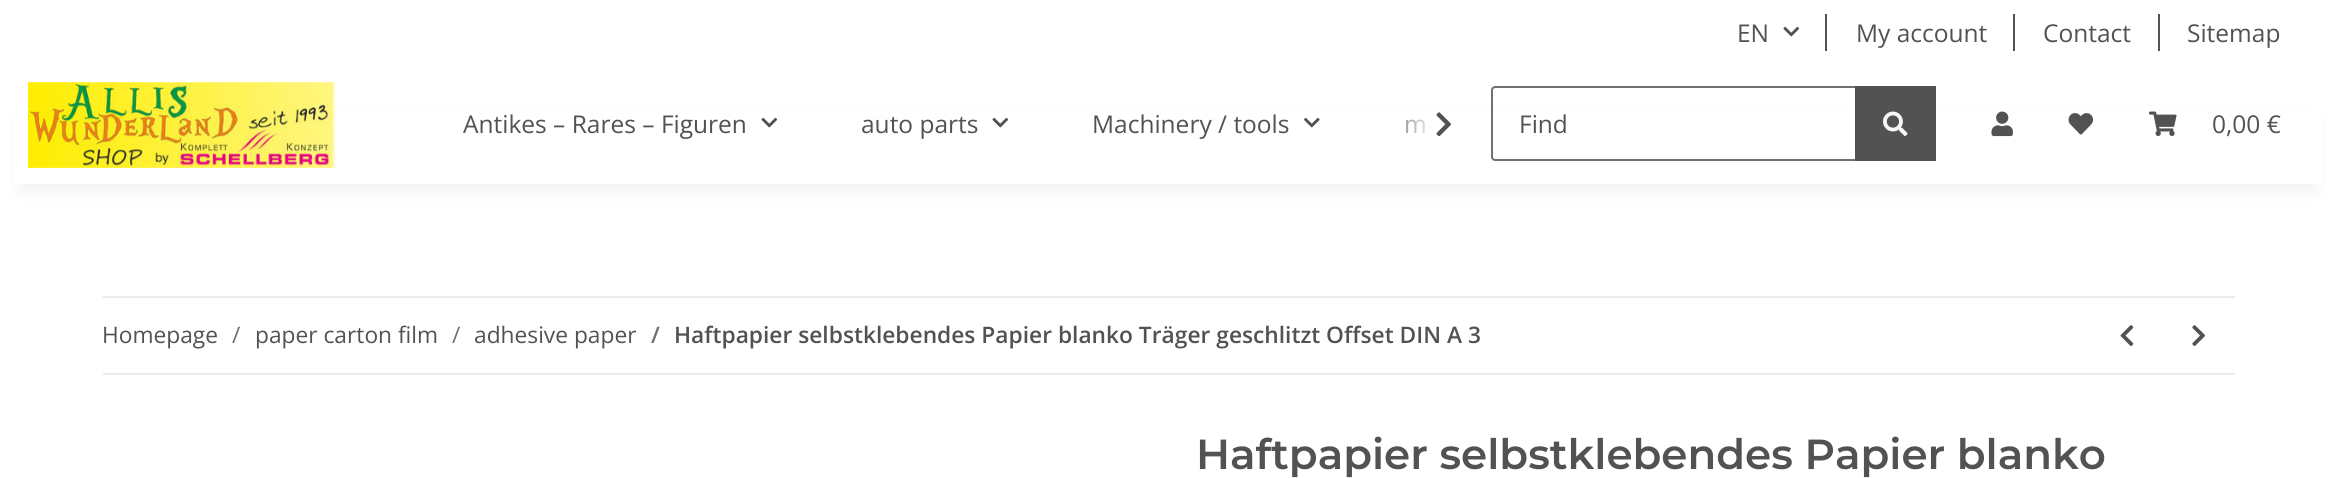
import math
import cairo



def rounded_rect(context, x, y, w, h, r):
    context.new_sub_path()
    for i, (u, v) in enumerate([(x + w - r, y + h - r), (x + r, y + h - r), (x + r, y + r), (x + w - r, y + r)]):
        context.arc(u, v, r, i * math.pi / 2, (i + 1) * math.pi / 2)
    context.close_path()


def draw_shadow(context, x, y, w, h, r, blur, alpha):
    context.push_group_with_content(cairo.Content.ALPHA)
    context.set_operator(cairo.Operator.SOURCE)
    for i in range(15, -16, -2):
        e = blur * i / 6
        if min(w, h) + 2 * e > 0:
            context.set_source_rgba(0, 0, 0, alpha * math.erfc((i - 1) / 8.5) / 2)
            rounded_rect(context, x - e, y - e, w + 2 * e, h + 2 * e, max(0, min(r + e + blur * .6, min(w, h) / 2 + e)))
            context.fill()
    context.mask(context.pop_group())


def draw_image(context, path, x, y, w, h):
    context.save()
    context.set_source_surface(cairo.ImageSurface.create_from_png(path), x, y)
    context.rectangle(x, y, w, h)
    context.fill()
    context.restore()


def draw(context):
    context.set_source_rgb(1, 1, 1)
    context.paint()
    draw_image(context, "images/1.png", 1783, 26, 17, 11)
    context.set_source_rgb(82 / 255, 82 / 255, 82 / 255)
    context.rectangle(1825, 14, 2, 37)
    context.fill()
    context.rectangle(2013, 14, 2, 37)
    context.fill()
    context.rectangle(2158, 14, 2, 37)
    context.fill()
    context.set_source_rgb(0, 0, 0)
    draw_shadow(context, 21, 114, 2294, 77, 0, 8, 0.06)
    context.set_source_rgb(1, 1, 1)
    context.rectangle(13, 106, 2310, 78)
    context.fill()
    draw_image(context, "images/2.png", 28, 82, 308, 86)
    draw_image(context, "images/1.png", 761, 117, 17, 11)
    draw_image(context, "images/1.png", 992, 117, 17, 11)
    draw_image(context, "images/3.png", 1304, 117, 16, 11)
    draw_image(context, "images/4.png", 1436, 112, 15, 25)
    context.new_path()
    context.move_to(1495, 87)
    context.line_to(1856, 87)
    context.line_to(1856, 160)
    context.line_to(1495, 160)
    context.curve_to(1493.5, 160, 1492, 158.5, 1492, 157)
    context.line_to(1492, 90)
    context.curve_to(1492, 88.5, 1493.5, 87, 1495, 87)
    context.close_path()
    context.set_source_rgb(112 / 255, 112 / 255, 112 / 255)
    context.stroke()
    context.set_source_rgb(82 / 255, 82 / 255, 82 / 255)
    context.rectangle(1855, 86, 81, 75)
    context.fill()
    draw_image(context, "images/5.png", 1883, 111, 25, 25)
    draw_image(context, "images/6.png", 1991, 111, 22, 26)
    draw_image(context, "images/7.png", 2068, 113, 26, 22)
    draw_image(context, "images/8.png", 2149, 111, 28, 25)
    context.set_source_rgb(235 / 255, 235 / 255, 235 / 255)
    context.rectangle(103, 296, 2132, 2)
    context.fill()
    context.rectangle(103, 373, 2132, 2)
    context.fill()
    draw_image(context, "images/9.png", 2120, 325, 14, 21)
    draw_image(context, "images/10.png", 2192, 325, 13, 21)
    context.select_font_face("Open Sans")
    context.set_font_size(24.5)
    context.set_source_rgb(82 / 255, 82 / 255, 82 / 255)
    context.move_to(1737, 42)
    context.show_text("EN")
    context.move_to(1856, 42)
    context.show_text("My account")
    context.move_to(2043, 42)
    context.show_text("Contact")
    context.move_to(2187, 42)
    context.show_text("Sitemap")
    context.move_to(463, 133)
    context.show_text("Antikes – Rares – Figuren")
    context.move_to(861, 133)
    context.show_text("auto parts")
    context.move_to(1092, 133)
    context.show_text("Machinery / tools")
    context.move_to(1404, 133)
    context.show_text("m")
    gradient = cairo.LinearGradient(1379, 124, 1463, 124)
    gradient.add_color_stop_rgba(0, 1, 1, 1, 0.01)
    gradient.add_color_stop_rgba(0.7, 1, 1, 1, 1)
    context.set_source(gradient)
    context.rectangle(1405, 119, 20, 14)
    context.fill()
    context.set_source_rgb(82 / 255, 82 / 255, 82 / 255)
    context.move_to(1519, 133)
    context.show_text("Find")
    context.move_to(2212, 133)
    context.show_text("0,00 €")
    context.set_font_size(22.75)
    context.move_to(102, 343)
    context.show_text("Homepage")
    context.set_source_rgb(112 / 255, 112 / 255, 112 / 255)
    context.move_to(232, 343)
    context.show_text("/")
    context.set_source_rgb(82 / 255, 82 / 255, 82 / 255)
    context.move_to(255, 343)
    context.show_text("paper carton film")
    context.set_source_rgb(112 / 255, 112 / 255, 112 / 255)
    context.move_to(452, 343)
    context.show_text("/")
    context.set_source_rgb(82 / 255, 82 / 255, 82 / 255)
    context.move_to(474, 343)
    context.show_text("adhesive paper")
    context.select_font_face("Open Sans SemiBold")
    context.set_source_rgb(112 / 255, 112 / 255, 112 / 255)
    context.move_to(651, 343)
    context.show_text("/")
    context.set_source_rgb(82 / 255, 82 / 255, 82 / 255)
    context.move_to(674, 343)
    context.show_text("Haftpapier selbstklebendes Papier blanko Träger geschlitzt Offset DIN A 3")
    context.select_font_face("Montserrat SemiBold")
    context.set_font_size(42)
    context.move_to(1196, 469)
    context.show_text("Haftpapier selbstklebendes Papier blanko")


surface = cairo.ImageSurface(cairo.Format.RGB24, 2336, 478)
context = cairo.Context(surface)
options = cairo.FontOptions()
options.set_hint_metrics(cairo.HintMetrics.OFF)
options.set_hint_style(cairo.HintStyle.NONE)
context.set_font_options(options)
context.set_miter_limit(4)
draw(context)
surface.write_to_png("out.png")
